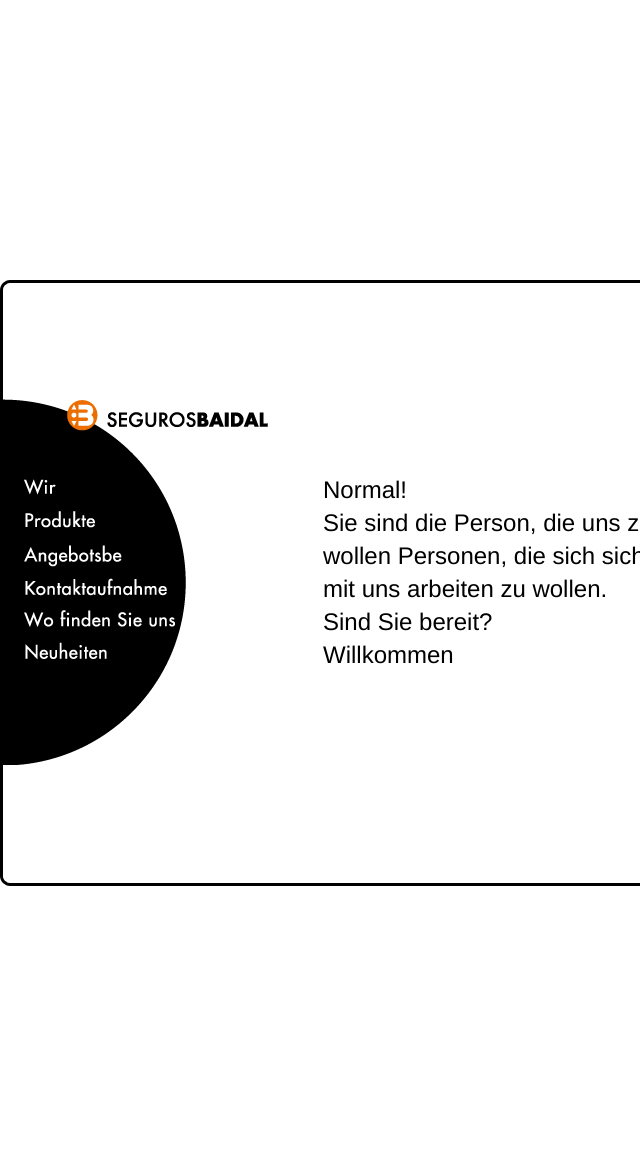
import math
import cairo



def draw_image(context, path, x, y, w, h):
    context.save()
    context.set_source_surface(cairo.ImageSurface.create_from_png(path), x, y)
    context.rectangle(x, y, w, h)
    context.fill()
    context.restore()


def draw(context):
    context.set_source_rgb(1, 1, 1)
    context.paint()
    draw_image(context, "images/1.png", 0, 280, 640, 606)
    draw_image(context, "images/2.png", 3, 399, 265, 366)
    draw_image(context, "images/3.png", 107, 412, 160, 16)
    draw_image(context, "images/4.png", 24, 479, 32, 16)
    draw_image(context, "images/5.png", 25, 511, 70, 17)
    draw_image(context, "images/6.png", 24, 545, 98, 22)
    draw_image(context, "images/7.png", 25, 578, 142, 18)
    draw_image(context, "images/8.png", 24, 610, 151, 17)
    draw_image(context, "images/9.png", 25, 642, 82, 18)
    context.select_font_face("Liberation Sans")
    context.set_font_size(24)
    context.set_source_rgb(0, 0, 0)
    context.move_to(323, 498)
    context.show_text("Normal!")
    context.move_to(323, 531)
    context.show_text("Sie sind die Person, die uns z")
    context.move_to(323, 564)
    context.show_text("wollen Personen, die sich sich")
    context.move_to(323, 597)
    context.show_text("mit uns arbeiten zu wollen.")
    context.move_to(323, 630)
    context.show_text("Sind Sie bereit?")
    context.move_to(323, 663)
    context.show_text("Willkommen")


surface = cairo.ImageSurface(cairo.Format.RGB24, 640, 1166)
context = cairo.Context(surface)
options = cairo.FontOptions()
options.set_hint_metrics(cairo.HintMetrics.OFF)
options.set_hint_style(cairo.HintStyle.NONE)
context.set_font_options(options)
context.set_miter_limit(4)
draw(context)
surface.write_to_png("out.png")
